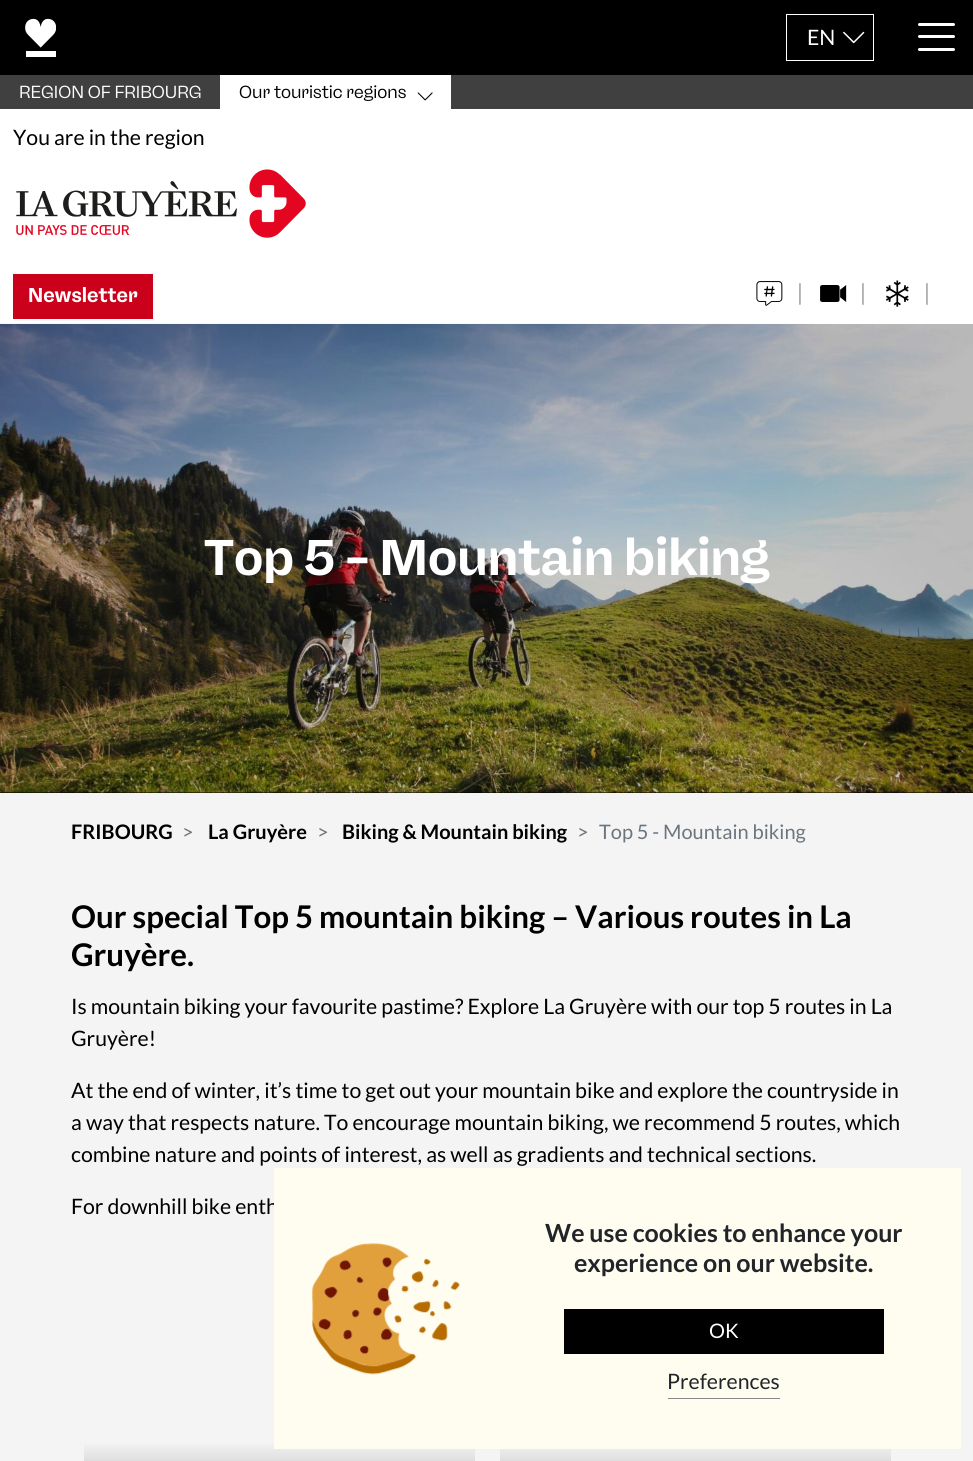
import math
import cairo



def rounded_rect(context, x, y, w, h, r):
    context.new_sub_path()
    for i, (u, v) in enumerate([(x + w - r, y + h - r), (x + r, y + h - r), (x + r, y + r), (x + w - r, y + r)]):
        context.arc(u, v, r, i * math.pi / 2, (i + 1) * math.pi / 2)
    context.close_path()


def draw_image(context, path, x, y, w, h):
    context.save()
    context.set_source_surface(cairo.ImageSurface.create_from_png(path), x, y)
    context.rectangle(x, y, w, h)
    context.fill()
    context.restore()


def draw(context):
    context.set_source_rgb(244 / 255, 244 / 255, 244 / 255)
    context.paint()
    context.set_source_rgb(0, 0, 0)
    context.rectangle(0, 0, 973, 75)
    context.fill()
    draw_image(context, "images/1.png", 25, 18, 31, 39)
    context.rectangle(786.5, 14.5, 87, 46)
    context.set_source_rgb(1, 1, 1)
    context.set_line_width(1)
    context.stroke()
    draw_image(context, "images/2.png", 843, 31, 22, 13)
    context.set_source_rgb(64 / 255, 64 / 255, 64 / 255)
    context.rectangle(0, 75, 973, 34)
    context.fill()
    context.set_source_rgb(1, 1, 1)
    context.rectangle(220, 75, 231, 34)
    context.fill()
    draw_image(context, "images/3.png", 417, 92, 16, 9)
    context.rectangle(0, 109, 973, 215)
    context.fill()
    draw_image(context, "images/4.png", 16, 169, 290, 69)
    context.set_source_rgb(203 / 255, 0, 26 / 255)
    context.rectangle(13, 274, 140, 45)
    context.fill()
    draw_image(context, "images/5.png", 756, 281, 27, 25)
    draw_image(context, "images/6.png", 820, 285, 27, 17)
    draw_image(context, "images/7.png", 886, 280, 23, 27)
    context.set_source_rgb(1, 1, 1)
    rounded_rect(context, 918, 23, 37, 3, 1.5)
    context.fill()
    rounded_rect(context, 918, 35, 37, 3, 1.5)
    context.fill()
    rounded_rect(context, 918, 48, 37, 3, 1.5)
    context.fill()
    context.set_source_rgb(0, 0, 0)
    context.rectangle(0, 324, 973, 469)
    context.fill()
    draw_image(context, "images/8.png", 0, 323, 973, 470)
    gradient = cairo.LinearGradient(279, 1318, 279, 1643)
    gradient.add_color_stop_rgba(0, 244 / 255, 244 / 255, 244 / 255, 1)
    gradient.add_color_stop_rgba(0.38, 244 / 255, 244 / 255, 244 / 255, 1)
    gradient.add_color_stop_rgba(1, 24 / 255, 24 / 255, 24 / 255, 1)
    context.set_source(gradient)
    context.rectangle(84, 1444, 391, 17)
    context.fill()
    gradient = cairo.LinearGradient(696, 1318, 696, 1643)
    gradient.add_color_stop_rgba(0, 244 / 255, 244 / 255, 244 / 255, 1)
    gradient.add_color_stop_rgba(0.38, 244 / 255, 244 / 255, 244 / 255, 1)
    gradient.add_color_stop_rgba(1, 24 / 255, 24 / 255, 24 / 255, 1)
    context.set_source(gradient)
    context.rectangle(500, 1449, 391, 12)
    context.fill()
    context.select_font_face("Lato")
    context.set_font_size(21.25)
    context.set_source_rgb(1, 1, 1)
    context.move_to(807, 45)
    context.show_text("EN")
    context.select_font_face("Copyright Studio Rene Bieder")
    context.set_font_size(17.5)
    context.move_to(19, 98)
    context.show_text("REGION OF FRIBOURG")
    context.set_source_rgb(0, 0, 0)
    context.move_to(239, 98)
    context.show_text("Our touristic regions")
    context.select_font_face("Lato")
    context.set_font_size(21.25)
    context.move_to(13, 145)
    context.show_text("You are in the region")
    context.select_font_face("Copyright Studio Rene Bieder", cairo.FontSlant.NORMAL, cairo.FontWeight.BOLD)
    context.set_font_size(20)
    context.set_source_rgb(1, 1, 1)
    context.move_to(28, 302)
    context.show_text("Newsletter")
    context.select_font_face("Copyright Studio Rene Bieder")
    context.set_font_size(25)
    context.set_source_rgb(170 / 255, 170 / 255, 170 / 255)
    context.move_to(797, 302)
    context.show_text("|")
    context.move_to(860, 302)
    context.show_text("|")
    context.move_to(924, 302)
    context.show_text("|")
    context.select_font_face("Copyright Studio Rene Bieder", cairo.FontSlant.NORMAL, cairo.FontWeight.BOLD)
    context.set_font_size(50)
    context.set_source_rgb(1, 1, 1)
    context.move_to(204, 575)
    context.show_text("Top 5 – Mountain biking")
    context.select_font_face("Lato", cairo.FontSlant.NORMAL, cairo.FontWeight.BOLD)
    context.set_font_size(20)
    context.set_source_rgb(0, 0, 0)
    context.move_to(71, 839)
    context.show_text("FRIBOURG")
    context.select_font_face("Lato")
    context.set_source_rgb(108 / 255, 117 / 255, 125 / 255)
    context.move_to(182, 839)
    context.show_text(">")
    context.select_font_face("Lato", cairo.FontSlant.NORMAL, cairo.FontWeight.BOLD)
    context.set_source_rgb(0, 0, 0)
    context.move_to(208, 839)
    context.show_text("La Gruyère")
    context.select_font_face("Lato")
    context.set_source_rgb(108 / 255, 117 / 255, 125 / 255)
    context.move_to(317, 839)
    context.show_text(">")
    context.select_font_face("Lato", cairo.FontSlant.NORMAL, cairo.FontWeight.BOLD)
    context.set_source_rgb(0, 0, 0)
    context.move_to(342, 839)
    context.show_text("Biking & Mountain biking")
    context.select_font_face("Lato")
    context.set_source_rgb(108 / 255, 117 / 255, 125 / 255)
    context.move_to(577, 839)
    context.show_text(">")
    context.move_to(599, 839)
    context.show_text("Top 5 - Mountain biking")
    context.select_font_face("Lato", cairo.FontSlant.NORMAL, cairo.FontWeight.BOLD)
    context.set_font_size(31.25)
    context.set_source_rgb(0, 0, 0)
    context.move_to(71, 928)
    context.show_text("Our special Top 5 mountain biking – Various routes in La")
    context.move_to(71, 966)
    context.show_text("Gruyère.")
    context.select_font_face("Lato")
    context.set_font_size(21.25)
    context.move_to(71, 1014)
    context.show_text("Is mountain biking your favourite pastime? Explore La Gruyère with our top 5 routes in La")
    context.move_to(71, 1046)
    context.show_text("Gruyère!")
    context.move_to(71, 1098)
    context.show_text("At the end of winter, it’s time to get out your mountain bike and explore the countryside in")
    context.move_to(71, 1130)
    context.show_text("a way that respects nature. To encourage mountain biking, we recommend 5 routes, which")
    context.move_to(71, 1162)
    context.show_text("combine nature and points of interest, as well as gradients and technical sections.")
    context.move_to(71, 1214)
    context.show_text("For downhill bike enth")
    context.set_source_rgb(1, 252 / 255, 240 / 255)
    context.rectangle(274, 1168, 687, 281)
    context.fill()
    draw_image(context, "images/9.png", 312, 1243, 148, 132)
    context.select_font_face("Lato", cairo.FontSlant.NORMAL, cairo.FontWeight.BOLD)
    context.set_font_size(25)
    context.set_source_rgb(33 / 255, 37 / 255, 41 / 255)
    context.move_to(545, 1242)
    context.show_text("We use cookies to enhance your")
    context.move_to(574, 1272)
    context.show_text("experience on our website.")
    context.set_source_rgb(0, 0, 0)
    context.rectangle(564, 1309, 320, 45)
    context.fill()
    context.select_font_face("Lato")
    context.set_font_size(20)
    context.set_source_rgb(1, 1, 1)
    context.move_to(709, 1338)
    context.show_text("OK")
    context.set_source_rgb(136 / 255, 136 / 255, 136 / 255)
    context.rectangle(668, 1398, 112, 1)
    context.fill()
    context.set_font_size(21.25)
    context.set_source_rgb(33 / 255, 37 / 255, 41 / 255)
    context.move_to(667, 1389)
    context.show_text("Preferences")


surface = cairo.ImageSurface(cairo.Format.RGB24, 973, 1461)
context = cairo.Context(surface)
options = cairo.FontOptions()
options.set_hint_metrics(cairo.HintMetrics.OFF)
options.set_hint_style(cairo.HintStyle.NONE)
context.set_font_options(options)
context.set_miter_limit(4)
draw(context)
surface.write_to_png("out.png")
